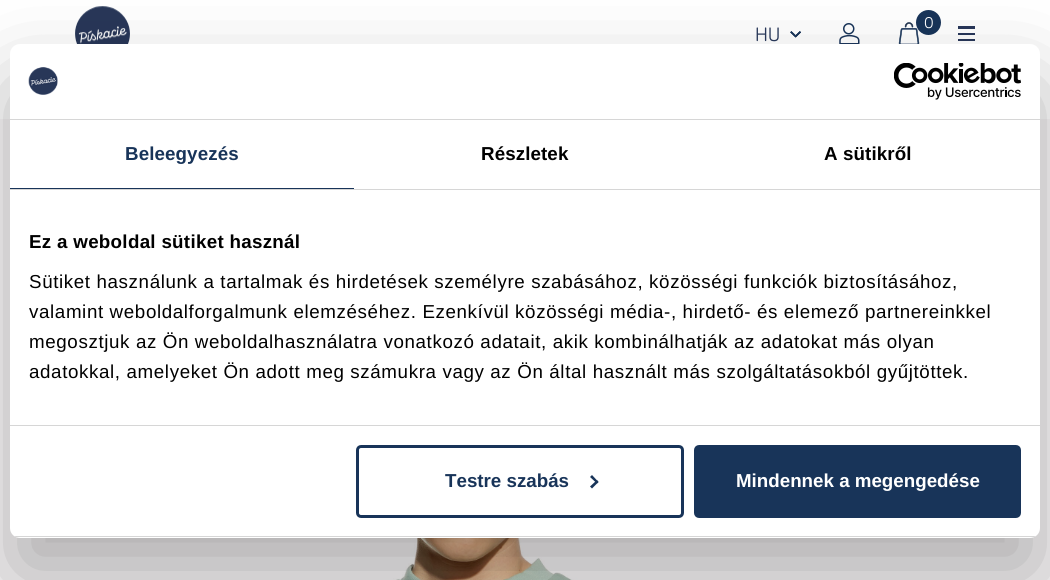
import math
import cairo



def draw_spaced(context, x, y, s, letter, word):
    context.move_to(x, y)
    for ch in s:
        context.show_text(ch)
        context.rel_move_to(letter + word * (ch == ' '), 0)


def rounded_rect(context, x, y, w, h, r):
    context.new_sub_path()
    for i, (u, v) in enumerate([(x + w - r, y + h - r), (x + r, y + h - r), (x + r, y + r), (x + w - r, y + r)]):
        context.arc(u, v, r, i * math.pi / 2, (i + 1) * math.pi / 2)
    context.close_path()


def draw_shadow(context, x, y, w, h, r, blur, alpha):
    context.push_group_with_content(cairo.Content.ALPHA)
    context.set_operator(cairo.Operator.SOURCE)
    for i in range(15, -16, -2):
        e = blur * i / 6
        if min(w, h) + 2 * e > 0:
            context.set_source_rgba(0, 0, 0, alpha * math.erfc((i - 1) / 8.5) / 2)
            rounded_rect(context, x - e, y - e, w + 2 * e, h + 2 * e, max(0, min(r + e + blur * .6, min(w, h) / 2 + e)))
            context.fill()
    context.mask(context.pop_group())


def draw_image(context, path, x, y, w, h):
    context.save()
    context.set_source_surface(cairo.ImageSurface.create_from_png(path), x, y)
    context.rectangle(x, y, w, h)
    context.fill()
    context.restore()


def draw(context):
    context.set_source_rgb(1, 1, 1)
    context.paint()
    draw_image(context, "images/1.png", 75, 6, 55, 38)
    draw_image(context, "images/2.png", 790, 31, 11, 7)
    draw_image(context, "images/3.png", 790, 31, 11, 7)
    draw_image(context, "images/4.png", 839, 23, 21, 21)
    draw_image(context, "images/5.png", 898, 22, 22, 22)
    context.set_source_rgb(24 / 255, 52 / 255, 89 / 255)
    context.arc(928.5, 22.5, 12.5, 0, 2 * math.pi)
    context.fill()
    context.set_source_rgb(40 / 255, 55 / 255, 89 / 255)
    context.rectangle(958, 26, 17, 3)
    context.fill()
    context.rectangle(958, 33, 17, 2)
    context.fill()
    context.rectangle(958, 39, 17, 2)
    context.fill()
    context.set_source_rgb(248 / 255, 246 / 255, 247 / 255)
    context.rectangle(0, 119, 1050, 461)
    context.fill()
    draw_image(context, "images/6.png", 300, 538, 296, 42)
    context.set_source_rgb(0, 0, 0)
    draw_shadow(context, 10, 84, 1030, 494, 10, 42.5, 0.3)
    context.set_source_rgb(1, 1, 1)
    rounded_rect(context, 10, 44, 1030, 494, 10)
    context.fill()
    context.set_source_rgb(214 / 255, 214 / 255, 214 / 255)
    context.rectangle(10, 119, 1030, 1)
    context.fill()
    draw_image(context, "images/7.png", 28, 67, 30, 28)
    draw_image(context, "images/8.png", 894, 63, 127, 37)
    context.rectangle(10, 189, 1030, 1)
    context.fill()
    context.set_source_rgb(24 / 255, 52 / 255, 89 / 255)
    context.rectangle(10, 188, 344, 1)
    context.fill()
    context.set_source_rgb(214 / 255, 214 / 255, 214 / 255)
    context.rectangle(10, 425, 1030, 1)
    context.fill()
    context.save()
    rounded_rect(context, 10, 44, 1030, 494, 10)
    context.clip()
    context.rectangle(10, 536, 1030, 1)
    context.fill()
    context.restore()
    rounded_rect(context, 357.5, 446.5, 325, 70, 3.5)
    context.set_source_rgb(24 / 255, 52 / 255, 89 / 255)
    context.set_line_width(3)
    context.stroke()
    context.new_path()
    context.move_to(592, 475)
    context.line_to(598.5, 482)
    context.line_to(597, 483.5)
    context.line_to(590, 477)
    context.close_path()
    context.fill()
    context.new_path()
    context.move_to(597, 480)
    context.line_to(598.5, 482)
    context.line_to(592, 488.5)
    context.line_to(590, 486.5)
    context.close_path()
    context.fill()
    rounded_rect(context, 695.5, 446.5, 324, 70, 3.5)
    context.fill_preserve()
    context.stroke()
    context.select_font_face("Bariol")
    context.set_font_size(20)
    context.set_source_rgb(40 / 255, 55 / 255, 88 / 255)
    context.move_to(755, 41)
    context.show_text("HU")
    context.set_font_size(16)
    context.set_source_rgb(1, 1, 1)
    context.move_to(924, 28)
    context.show_text("0")
    context.select_font_face("Liberation Sans", cairo.FontSlant.NORMAL, cairo.FontWeight.BOLD)
    context.set_font_size(18.75)
    context.set_source_rgb(24 / 255, 52 / 255, 89 / 255)
    draw_spaced(context, 125, 160, "Beleegyezés", 0.1, 0)
    context.set_source_rgb(0, 0, 0)
    draw_spaced(context, 481, 160, "Részletek", 0.1, 0)
    draw_spaced(context, 824, 160, "A sütikről", 0.1, 0)
    draw_spaced(context, 29, 248, "Ez a weboldal sütiket használ", 0.3, 0)
    context.select_font_face("Liberation Sans")
    draw_spaced(context, 29, 288, "Sütiket használunk a tartalmak és hirdetések személyre szabásához, közösségi funkciók biztosításához,", 0.62, 0)
    draw_spaced(context, 29, 318, "valamint weboldalforgalmunk elemzéséhez. Ezenkívül közösségi média-, hirdető- és elemező partnereinkkel", 0.62, 0)
    draw_spaced(context, 29, 348, "megosztjuk az Ön weboldalhasználatra vonatkozó adatait, akik kombinálhatják az adatokat más olyan", 0.62, 0)
    draw_spaced(context, 29, 378, "adatokkal, amelyeket Ön adott meg számukra vagy az Ön által használt más szolgáltatásokból gyűjtöttek.", 0.62, 0)
    context.select_font_face("Liberation Sans", cairo.FontSlant.NORMAL, cairo.FontWeight.BOLD)
    context.set_source_rgb(24 / 255, 52 / 255, 89 / 255)
    context.move_to(445, 487)
    context.show_text("Testre szabás")
    context.set_source_rgb(1, 1, 1)
    context.move_to(736, 487)
    context.show_text("Mindennek a megengedése")


surface = cairo.ImageSurface(cairo.Format.RGB24, 1050, 580)
context = cairo.Context(surface)
options = cairo.FontOptions()
options.set_hint_metrics(cairo.HintMetrics.OFF)
options.set_hint_style(cairo.HintStyle.NONE)
context.set_font_options(options)
context.set_miter_limit(4)
draw(context)
surface.write_to_png("out.png")
